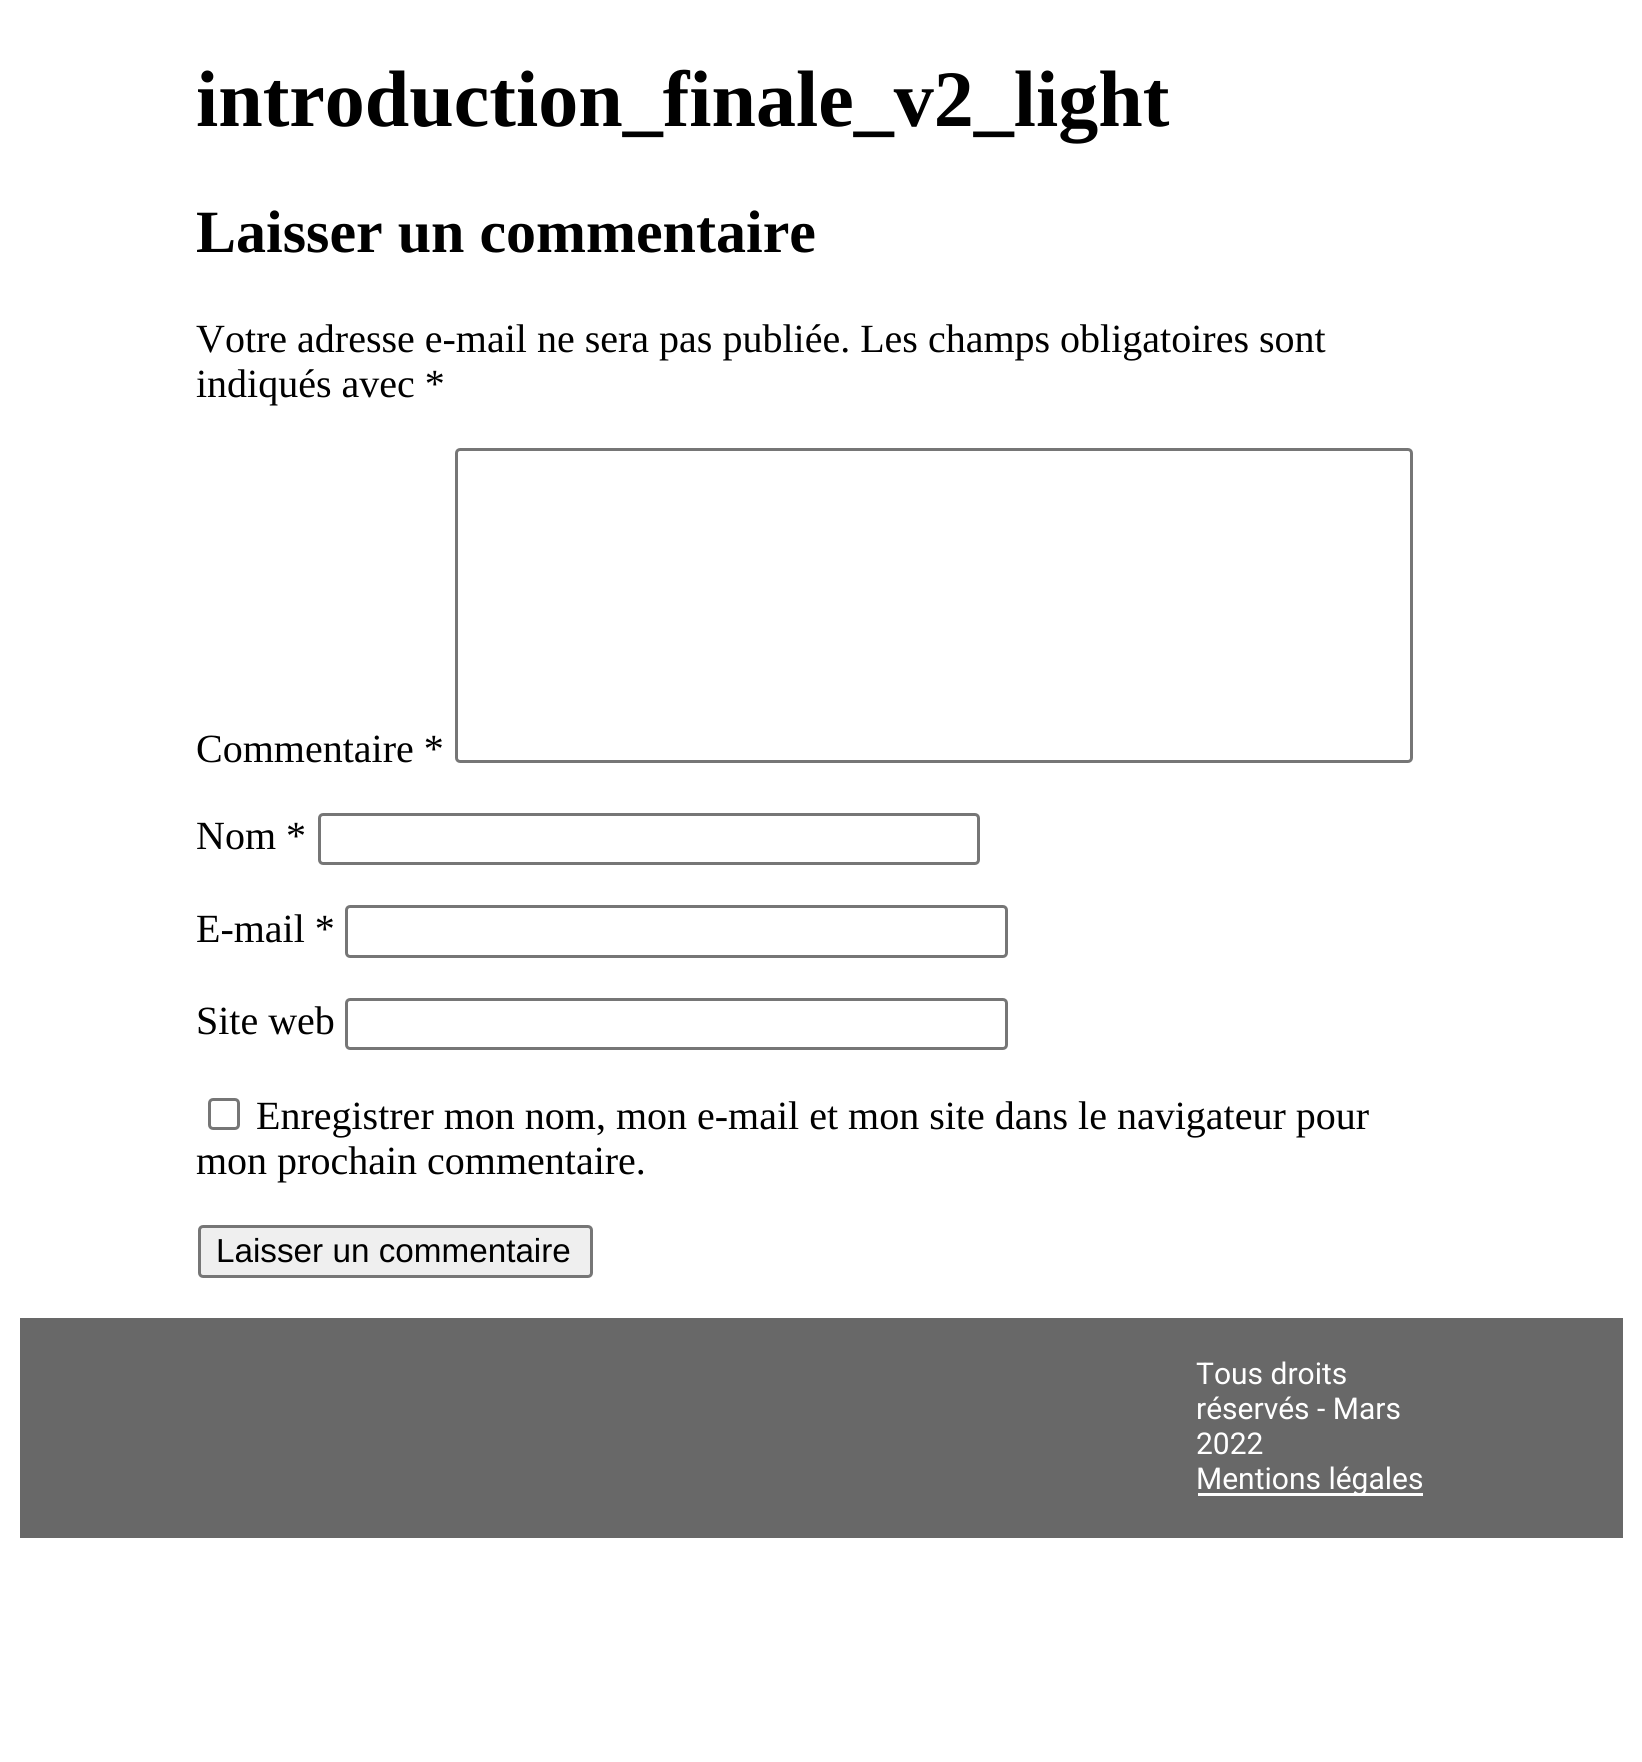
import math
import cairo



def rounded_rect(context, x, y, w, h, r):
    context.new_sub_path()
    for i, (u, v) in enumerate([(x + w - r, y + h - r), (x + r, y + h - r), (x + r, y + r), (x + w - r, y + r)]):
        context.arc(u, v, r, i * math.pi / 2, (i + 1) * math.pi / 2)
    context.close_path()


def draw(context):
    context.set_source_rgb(1, 1, 1)
    context.paint()
    rounded_rect(context, 456.5, 449.5, 955, 312, 3.5)
    context.set_source_rgb(118 / 255, 118 / 255, 118 / 255)
    context.set_line_width(3)
    context.stroke()
    rounded_rect(context, 319.5, 814.5, 659, 49, 3.5)
    context.stroke()
    rounded_rect(context, 346.5, 906.5, 660, 50, 3.5)
    context.stroke()
    rounded_rect(context, 346.5, 999.5, 660, 49, 3.5)
    context.stroke()
    rounded_rect(context, 209.5, 1099.5, 29, 29, 3.5)
    context.stroke()
    context.set_source_rgb(239 / 255, 239 / 255, 239 / 255)
    rounded_rect(context, 199.5, 1226.5, 392, 50, 3.5)
    context.fill_preserve()
    context.set_source_rgb(118 / 255, 118 / 255, 118 / 255)
    context.stroke()
    context.set_source_rgb(104 / 255, 104 / 255, 104 / 255)
    context.rectangle(20, 1318, 1603, 220)
    context.fill()
    context.set_source_rgb(1, 1, 1)
    context.rectangle(1198, 1493, 225, 3)
    context.fill()
    context.select_font_face("Liberation Serif", cairo.FontSlant.NORMAL, cairo.FontWeight.BOLD)
    context.set_font_size(80)
    context.set_source_rgb(0, 0, 0)
    context.move_to(196, 126)
    context.show_text("introduction_finale_v2_light")
    context.set_font_size(60)
    context.move_to(196, 252)
    context.show_text("Laisser un commentaire")
    context.select_font_face("Liberation Serif")
    context.set_font_size(40)
    context.move_to(196, 352)
    context.show_text("Votre adresse e-mail ne sera pas publiée. Les champs obligatoires sont")
    context.move_to(196, 397)
    context.show_text("indiqués avec *")
    context.move_to(196, 762)
    context.show_text("Commentaire *")
    context.move_to(196, 849)
    context.show_text("Nom *")
    context.move_to(196, 942)
    context.show_text("E-mail *")
    context.move_to(196, 1034)
    context.show_text("Site web")
    context.move_to(256, 1129)
    context.show_text("Enregistrer mon nom, mon e-mail et mon site dans le navigateur pour")
    context.move_to(196, 1174)
    context.show_text("mon prochain commentaire.")
    context.select_font_face("Liberation Sans")
    context.set_font_size(33.25)
    context.move_to(216, 1262)
    context.show_text("Laisser un commentaire")
    context.select_font_face("Roboto")
    context.set_font_size(30)
    context.set_source_rgb(1, 1, 1)
    context.move_to(1196, 1384)
    context.show_text("Tous droits")
    context.move_to(1196, 1419)
    context.show_text("réservés - Mars")
    context.move_to(1196, 1454)
    context.show_text("2022")
    context.move_to(1196, 1489)
    context.show_text("Mentions légales")


surface = cairo.ImageSurface(cairo.Format.RGB24, 1642, 1762)
context = cairo.Context(surface)
options = cairo.FontOptions()
options.set_hint_metrics(cairo.HintMetrics.OFF)
options.set_hint_style(cairo.HintStyle.NONE)
context.set_font_options(options)
context.set_miter_limit(4)
draw(context)
surface.write_to_png("out.png")
